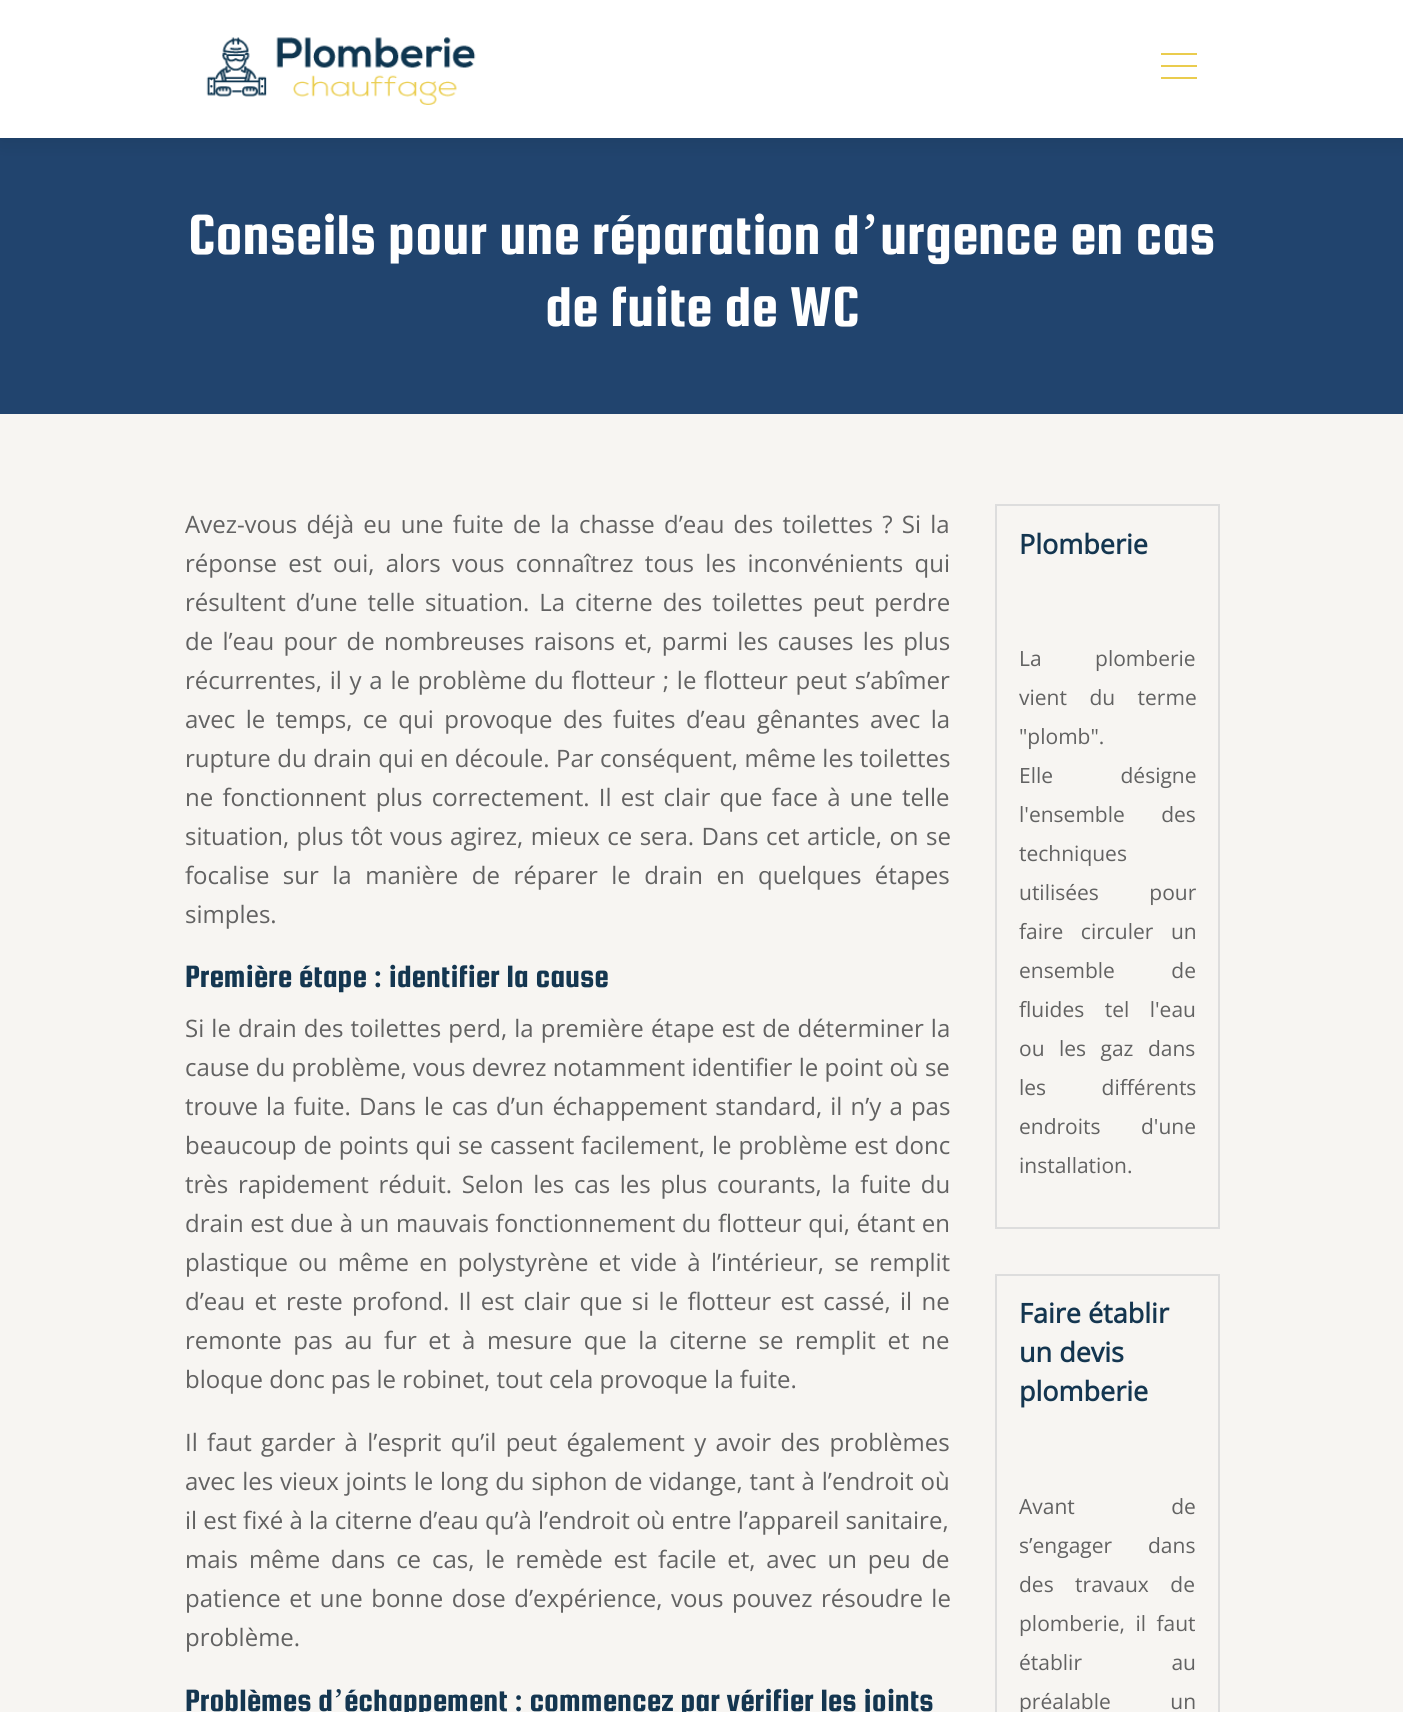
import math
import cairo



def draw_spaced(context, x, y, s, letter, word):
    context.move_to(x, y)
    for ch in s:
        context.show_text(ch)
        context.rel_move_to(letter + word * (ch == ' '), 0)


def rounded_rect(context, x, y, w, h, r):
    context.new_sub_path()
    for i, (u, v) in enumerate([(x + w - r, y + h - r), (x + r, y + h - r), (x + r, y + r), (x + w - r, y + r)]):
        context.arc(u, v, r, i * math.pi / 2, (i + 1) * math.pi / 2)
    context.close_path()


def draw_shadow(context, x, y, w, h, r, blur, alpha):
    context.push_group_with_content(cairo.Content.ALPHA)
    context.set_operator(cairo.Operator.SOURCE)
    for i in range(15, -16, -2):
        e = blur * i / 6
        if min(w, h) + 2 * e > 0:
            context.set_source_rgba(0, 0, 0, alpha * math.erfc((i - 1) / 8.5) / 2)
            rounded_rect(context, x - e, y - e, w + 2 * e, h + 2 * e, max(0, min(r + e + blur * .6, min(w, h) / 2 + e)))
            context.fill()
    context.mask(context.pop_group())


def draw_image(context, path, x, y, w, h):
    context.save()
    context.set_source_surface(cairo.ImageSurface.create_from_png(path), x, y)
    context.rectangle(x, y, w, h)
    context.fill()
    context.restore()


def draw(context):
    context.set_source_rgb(247 / 255, 245 / 255, 242 / 255)
    context.paint()
    context.set_source_rgb(33 / 255, 68 / 255, 110 / 255)
    context.rectangle(0, 138, 1403, 276)
    context.fill()
    context.set_source_rgb(0, 0, 0)
    draw_shadow(context, 0, 3, 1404, 138, 0, 10, 0.1)
    context.set_source_rgb(1, 1, 1)
    context.rectangle(0, 0, 1403, 138)
    context.fill()
    draw_image(context, "images/1.png", 206, 37, 270, 68)
    context.set_source_rgb(234 / 255, 204 / 255, 78 / 255)
    context.rectangle(1161, 53, 36, 2)
    context.fill()
    context.rectangle(1161, 65, 36, 2)
    context.fill()
    context.rectangle(1161, 77, 36, 2)
    context.fill()
    context.rectangle(996, 505, 223, 723)
    context.set_source_rgb(221 / 255, 221 / 255, 221 / 255)
    context.stroke()
    context.rectangle(996, 1275, 223, 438)
    context.stroke()
    context.select_font_face("Squada One")
    context.set_font_size(60)
    context.set_source_rgb(1, 1, 1)
    context.move_to(188, 254)
    context.show_text("Conseils pour une réparation d")
    context.select_font_face("Liberation Serif")
    context.move_to(860, 254)
    context.show_text("’")
    context.select_font_face("Squada One")
    context.move_to(880, 254)
    context.show_text("urgence en cas")
    context.move_to(545, 326)
    context.show_text("de fuite de WC")
    context.select_font_face("Open Sans")
    context.set_font_size(24)
    context.set_source_rgb(98 / 255, 98 / 255, 98 / 255)
    draw_spaced(context, 185, 533, "Avez-vous déjà eu une fuite de la chasse d’eau des toilettes ? Si la", 0, 3)
    draw_spaced(context, 185, 572, "réponse est oui, alors vous connaîtrez tous les inconvénients qui", 0, 5)
    draw_spaced(context, 185, 611, "résultent d’une telle situation. La citerne des toilettes peut perdre", 0, 3.75)
    draw_spaced(context, 185, 650, "de l’eau pour de nombreuses raisons et, parmi les causes les plus", 0, 3.1)
    draw_spaced(context, 185, 689, "récurrentes, il y a le problème du flotteur ; le flotteur peut s’abîmer", 0, 1.5)
    draw_spaced(context, 185, 728, "avec le temps, ce qui provoque des fuites d’eau gênantes avec la", 0, 4.25)
    draw_spaced(context, 185, 767, "rupture du drain qui en découle. Par conséquent, même les toilettes", 0, 0.25)
    draw_spaced(context, 185, 806, "ne fonctionnent plus correctement. Il est clair que face à une telle", 0, 3)
    draw_spaced(context, 185, 845, "situation, plus tôt vous agirez, mieux ce sera. Dans cet article, on se", 0, 1.25)
    draw_spaced(context, 185, 884, "focalise sur la manière de réparer le drain en quelques étapes", 0, 7.25)
    context.move_to(185, 923)
    context.show_text("simples.")
    context.select_font_face("Squada One")
    context.set_font_size(33)
    context.set_source_rgb(20 / 255, 54 / 255, 80 / 255)
    context.move_to(185, 987)
    context.show_text("Première étape : identifier la cause")
    context.select_font_face("Open Sans")
    context.set_font_size(24)
    context.set_source_rgb(98 / 255, 98 / 255, 98 / 255)
    draw_spaced(context, 185, 1037, "Si le drain des toilettes perd, la première étape est de déterminer la", 0, 0.9)
    draw_spaced(context, 185, 1076, "cause du problème, vous devrez notamment identifier le point où se", 0, 0.1)
    draw_spaced(context, 185, 1115, "trouve la fuite. Dans le cas d’un échappement standard, il n’y a pas", 0, 1.9)
    draw_spaced(context, 185, 1154, "beaucoup de points qui se cassent facilement, le problème est donc", 0, 0.75)
    draw_spaced(context, 185, 1193, "très rapidement réduit. Selon les cas les plus courants, la fuite du", 0, 3.4)
    draw_spaced(context, 185, 1232, "drain est due à un mauvais fonctionnement du flotteur qui, étant en", 0, 0.4)
    draw_spaced(context, 185, 1271, "plastique ou même en polystyrène et vide à l’intérieur, se remplit", 0, 4)
    draw_spaced(context, 185, 1310, "d’eau et reste profond. Il est clair que si le flotteur est cassé, il ne", 0, 3.1)
    draw_spaced(context, 185, 1349, "remonte pas au fur et à mesure que la citerne se remplit et ne", 0, 5.4)
    context.move_to(185, 1388)
    context.show_text("bloque donc pas le robinet, tout cela provoque la fuite.")
    draw_spaced(context, 185, 1451, "Il faut garder à l’esprit qu’il peut également y avoir des problèmes", 0, 3.1)
    draw_spaced(context, 185, 1490, "avec les vieux joints le long du siphon de vidange, tant à l’endroit où", 0, 0.6)
    context.move_to(185, 1529)
    context.show_text("il est fixé à la citerne d’eau qu’à l’endroit où entre l’appareil sanitaire,")
    draw_spaced(context, 185, 1568, "mais même dans ce cas, le remède est facile et, avec un peu de", 0, 4.6)
    draw_spaced(context, 185, 1607, "patience et une bonne dose d’expérience, vous pouvez résoudre le", 0, 2.25)
    context.move_to(185, 1646)
    context.show_text("problème.")
    context.select_font_face("Squada One")
    context.set_font_size(33)
    context.set_source_rgb(20 / 255, 54 / 255, 80 / 255)
    context.move_to(185, 1711)
    context.show_text("Problèmes d")
    context.select_font_face("Liberation Serif")
    context.move_to(333, 1711)
    context.show_text("’")
    context.select_font_face("Squada One")
    context.move_to(344, 1711)
    context.show_text("échappement : commencez par vérifier les joints")
    context.select_font_face("Open Sans", cairo.FontSlant.NORMAL, cairo.FontWeight.BOLD)
    context.set_font_size(27)
    context.move_to(1019, 554)
    context.show_text("Plomberie")
    context.select_font_face("Open Sans")
    context.set_font_size(21)
    context.set_source_rgb(98 / 255, 98 / 255, 98 / 255)
    draw_spaced(context, 1019, 666, "La plomberie", 0, 48)
    draw_spaced(context, 1019, 705, "vient du terme", 0, 17)
    context.move_to(1019, 744)
    context.show_text("\"plomb\".")
    draw_spaced(context, 1019, 783, "Elle désigne", 0, 62)
    draw_spaced(context, 1019, 822, "l'ensemble des", 0, 31)
    context.move_to(1019, 861)
    context.show_text("techniques")
    draw_spaced(context, 1019, 900, "utilisées pour", 0, 45)
    draw_spaced(context, 1019, 939, "faire circuler un", 0, 12)
    draw_spaced(context, 1019, 978, "ensemble de", 0, 51)
    draw_spaced(context, 1019, 1017, "fluides tel l'eau", 0, 15)
    draw_spaced(context, 1019, 1056, "ou les gaz dans", 0, 9)
    draw_spaced(context, 1019, 1095, "les différents", 0, 50)
    draw_spaced(context, 1019, 1134, "endroits d'une", 0, 35)
    context.move_to(1019, 1173)
    context.show_text("installation.")
    context.select_font_face("Open Sans", cairo.FontSlant.NORMAL, cairo.FontWeight.BOLD)
    context.set_font_size(27)
    context.set_source_rgb(20 / 255, 54 / 255, 80 / 255)
    context.move_to(1019, 1323)
    context.show_text("Faire établir")
    context.move_to(1019, 1362)
    context.show_text("un devis")
    context.move_to(1019, 1401)
    context.show_text("plomberie")
    context.select_font_face("Open Sans")
    context.set_font_size(21)
    context.set_source_rgb(98 / 255, 98 / 255, 98 / 255)
    draw_spaced(context, 1019, 1514, "Avant de", 0, 91)
    context.move_to(1019, 1553)
    context.show_text("s’engager")
    context.move_to(1148, 1553)
    context.show_text("dans")
    draw_spaced(context, 1019, 1592, "des travaux de", 0, 16)
    draw_spaced(context, 1019, 1631, "plomberie, il faut", 0, 5)
    draw_spaced(context, 1019, 1670, "établir au", 0, 84)
    draw_spaced(context, 1019, 1709, "préalable un", 0, 54)


surface = cairo.ImageSurface(cairo.Format.RGB24, 1403, 1712)
context = cairo.Context(surface)
options = cairo.FontOptions()
options.set_hint_metrics(cairo.HintMetrics.OFF)
options.set_hint_style(cairo.HintStyle.NONE)
context.set_font_options(options)
context.set_miter_limit(4)
draw(context)
surface.write_to_png("out.png")
